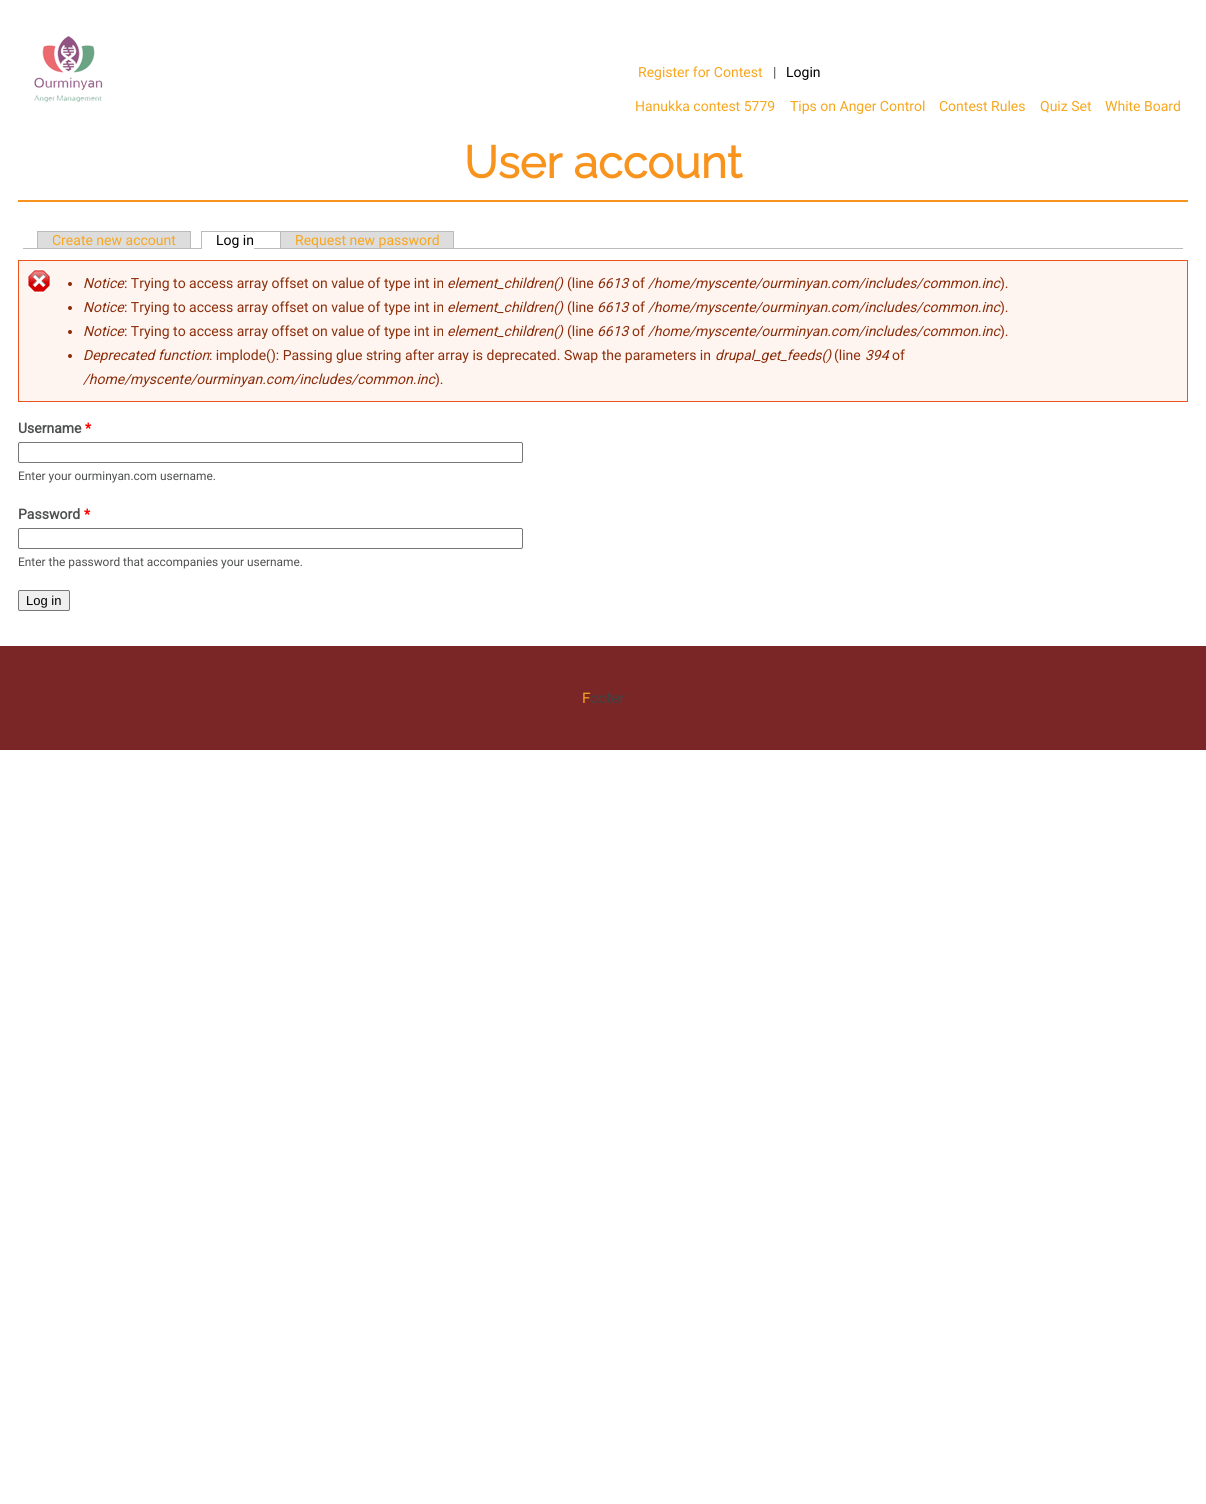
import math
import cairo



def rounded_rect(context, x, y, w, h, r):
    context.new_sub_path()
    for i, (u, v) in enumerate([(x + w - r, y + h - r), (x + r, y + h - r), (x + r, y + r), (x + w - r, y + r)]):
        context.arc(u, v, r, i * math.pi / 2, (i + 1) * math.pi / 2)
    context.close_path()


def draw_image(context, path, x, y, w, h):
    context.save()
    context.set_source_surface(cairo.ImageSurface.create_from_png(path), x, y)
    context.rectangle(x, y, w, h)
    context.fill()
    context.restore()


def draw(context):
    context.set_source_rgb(1, 1, 1)
    context.paint()
    draw_image(context, "images/1.png", 34, 36, 69, 67)
    context.set_source_rgb(248 / 255, 148 / 255, 29 / 255)
    context.rectangle(18, 200, 1170, 2)
    context.fill()
    context.set_source_rgb(187 / 255, 187 / 255, 187 / 255)
    context.rectangle(23, 248, 1160, 1)
    context.fill()
    context.set_source_rgb(221 / 255, 221 / 255, 221 / 255)
    context.rectangle(38, 232, 152, 16)
    context.fill()
    context.set_source_rgb(187 / 255, 187 / 255, 187 / 255)
    context.rectangle(37, 231, 154, 1)
    context.fill()
    context.rectangle(190, 231, 1, 17)
    context.fill()
    context.rectangle(37, 231, 1, 17)
    context.fill()
    context.set_source_rgb(1, 1, 1)
    context.rectangle(202, 248, 52, 1)
    context.fill()
    context.set_source_rgb(187 / 255, 187 / 255, 187 / 255)
    context.rectangle(201, 231, 253, 1)
    context.fill()
    context.rectangle(201, 231, 1, 18)
    context.fill()
    context.set_source_rgb(221 / 255, 221 / 255, 221 / 255)
    context.rectangle(281, 232, 172, 16)
    context.fill()
    context.set_source_rgb(187 / 255, 187 / 255, 187 / 255)
    context.rectangle(453, 231, 1, 17)
    context.fill()
    context.rectangle(280, 231, 1, 17)
    context.fill()
    context.set_source_rgb(254 / 255, 245 / 255, 241 / 255)
    context.rectangle(19, 261, 1168, 140)
    context.fill()
    draw_image(context, "images/2.png", 27, 269, 24, 24)
    context.rectangle(18.5, 260.5, 1169, 141)
    context.set_source_rgb(237 / 255, 84 / 255, 29 / 255)
    context.set_line_width(1)
    context.stroke()
    context.set_source_rgb(140 / 255, 46 / 255, 11 / 255)
    context.arc(70, 284, 2, 0, 2 * math.pi)
    context.fill()
    context.arc(70, 308, 2, 0, 2 * math.pi)
    context.fill()
    context.arc(70, 332, 2, 0, 2 * math.pi)
    context.fill()
    context.arc(70, 356, 2, 0, 2 * math.pi)
    context.fill()
    rounded_rect(context, 18.5, 442.5, 504, 20, 1.5)
    context.set_source_rgb(118 / 255, 118 / 255, 118 / 255)
    context.stroke()
    rounded_rect(context, 18.5, 528.5, 504, 20, 1.5)
    context.stroke()
    context.set_source_rgb(239 / 255, 239 / 255, 239 / 255)
    rounded_rect(context, 18.5, 590.5, 51, 20, 1.5)
    context.fill_preserve()
    context.set_source_rgb(118 / 255, 118 / 255, 118 / 255)
    context.stroke()
    context.set_source_rgb(123 / 255, 38 / 255, 38 / 255)
    context.rectangle(0, 646, 1206, 104)
    context.fill()
    context.select_font_face("Roboto")
    context.set_font_size(14)
    context.set_source_rgb(248 / 255, 166 / 255, 29 / 255)
    context.move_to(638, 77)
    context.show_text("Register for Contest")
    context.set_source_rgb(78 / 255, 79 / 255, 79 / 255)
    context.move_to(773, 77)
    context.show_text("|")
    context.set_source_rgb(0, 0, 0)
    context.move_to(786, 77)
    context.show_text("Login")
    context.set_source_rgb(248 / 255, 166 / 255, 29 / 255)
    context.move_to(635, 111)
    context.show_text("Hanukka contest 5779")
    context.move_to(790, 111)
    context.show_text("Tips on Anger Control")
    context.move_to(939, 111)
    context.show_text("Contest Rules")
    context.move_to(1040, 111)
    context.show_text("Quiz Set")
    context.move_to(1105, 111)
    context.show_text("White Board")
    context.select_font_face("Raleway", cairo.FontSlant.NORMAL, cairo.FontWeight.BOLD)
    context.set_font_size(45)
    context.set_source_rgb(248 / 255, 148 / 255, 29 / 255)
    context.move_to(464, 178)
    context.show_text("User account")
    context.select_font_face("Roboto")
    context.set_font_size(14)
    context.set_source_rgb(248 / 255, 166 / 255, 29 / 255)
    context.move_to(52, 245)
    context.show_text("Create new account")
    context.set_source_rgb(0, 0, 0)
    context.move_to(216, 245)
    context.show_text("Log in")
    context.set_source_rgb(248 / 255, 166 / 255, 29 / 255)
    context.move_to(295, 245)
    context.show_text("Request new password")
    context.select_font_face("Roboto", cairo.FontSlant.ITALIC)
    context.set_source_rgb(140 / 255, 46 / 255, 11 / 255)
    context.move_to(83, 288)
    context.show_text("Notice")
    context.select_font_face("Roboto")
    context.move_to(124, 288)
    context.show_text(": Trying to access array offset on value of type int in")
    context.select_font_face("Roboto", cairo.FontSlant.ITALIC)
    context.move_to(447, 288)
    context.show_text("element_children()")
    context.select_font_face("Roboto")
    context.move_to(567, 288)
    context.show_text("(line")
    context.select_font_face("Roboto", cairo.FontSlant.ITALIC)
    context.move_to(597, 288)
    context.show_text("6613")
    context.select_font_face("Roboto")
    context.move_to(632, 288)
    context.show_text("of")
    context.select_font_face("Roboto", cairo.FontSlant.ITALIC)
    context.move_to(648, 288)
    context.show_text("/home/myscente/ourminyan.com/includes/common.inc")
    context.select_font_face("Roboto")
    context.move_to(1000, 288)
    context.show_text(").")
    context.select_font_face("Roboto", cairo.FontSlant.ITALIC)
    context.move_to(83, 312)
    context.show_text("Notice")
    context.select_font_face("Roboto")
    context.move_to(124, 312)
    context.show_text(": Trying to access array offset on value of type int in")
    context.select_font_face("Roboto", cairo.FontSlant.ITALIC)
    context.move_to(447, 312)
    context.show_text("element_children()")
    context.select_font_face("Roboto")
    context.move_to(567, 312)
    context.show_text("(line")
    context.select_font_face("Roboto", cairo.FontSlant.ITALIC)
    context.move_to(597, 312)
    context.show_text("6613")
    context.select_font_face("Roboto")
    context.move_to(632, 312)
    context.show_text("of")
    context.select_font_face("Roboto", cairo.FontSlant.ITALIC)
    context.move_to(648, 312)
    context.show_text("/home/myscente/ourminyan.com/includes/common.inc")
    context.select_font_face("Roboto")
    context.move_to(1000, 312)
    context.show_text(").")
    context.select_font_face("Roboto", cairo.FontSlant.ITALIC)
    context.move_to(83, 336)
    context.show_text("Notice")
    context.select_font_face("Roboto")
    context.move_to(124, 336)
    context.show_text(": Trying to access array offset on value of type int in")
    context.select_font_face("Roboto", cairo.FontSlant.ITALIC)
    context.move_to(447, 336)
    context.show_text("element_children()")
    context.select_font_face("Roboto")
    context.move_to(567, 336)
    context.show_text("(line")
    context.select_font_face("Roboto", cairo.FontSlant.ITALIC)
    context.move_to(597, 336)
    context.show_text("6613")
    context.select_font_face("Roboto")
    context.move_to(632, 336)
    context.show_text("of")
    context.select_font_face("Roboto", cairo.FontSlant.ITALIC)
    context.move_to(648, 336)
    context.show_text("/home/myscente/ourminyan.com/includes/common.inc")
    context.select_font_face("Roboto")
    context.move_to(1000, 336)
    context.show_text(").")
    context.select_font_face("Roboto", cairo.FontSlant.ITALIC)
    context.move_to(83, 360)
    context.show_text("Deprecated function")
    context.select_font_face("Roboto")
    context.move_to(209, 360)
    context.show_text(": implode(): Passing glue string after array is deprecated. Swap the parameters in")
    context.select_font_face("Roboto", cairo.FontSlant.ITALIC)
    context.move_to(715, 360)
    context.show_text("drupal_get_feeds()")
    context.select_font_face("Roboto")
    context.move_to(834, 360)
    context.show_text("(line")
    context.select_font_face("Roboto", cairo.FontSlant.ITALIC)
    context.move_to(865, 360)
    context.show_text("394")
    context.select_font_face("Roboto")
    context.move_to(892, 360)
    context.show_text("of")
    context.select_font_face("Roboto", cairo.FontSlant.ITALIC)
    context.move_to(83, 384)
    context.show_text("/home/myscente/ourminyan.com/includes/common.inc")
    context.select_font_face("Roboto")
    context.move_to(435, 384)
    context.show_text(").")
    context.select_font_face("Roboto", cairo.FontSlant.NORMAL, cairo.FontWeight.BOLD)
    context.set_source_rgb(78 / 255, 79 / 255, 79 / 255)
    context.move_to(18, 433)
    context.show_text("Username")
    context.set_source_rgb(1, 0, 0)
    context.move_to(85, 433)
    context.show_text("*")
    context.select_font_face("Roboto")
    context.set_font_size(11.9)
    context.set_source_rgb(78 / 255, 79 / 255, 79 / 255)
    context.move_to(18, 480)
    context.show_text("Enter your ourminyan.com username.")
    context.select_font_face("Roboto", cairo.FontSlant.NORMAL, cairo.FontWeight.BOLD)
    context.set_font_size(14)
    context.move_to(18, 519)
    context.show_text("Password")
    context.set_source_rgb(1, 0, 0)
    context.move_to(84, 519)
    context.show_text("*")
    context.select_font_face("Roboto")
    context.set_font_size(11.9)
    context.set_source_rgb(78 / 255, 79 / 255, 79 / 255)
    context.move_to(18, 566)
    context.show_text("Enter the password that accompanies your username.")
    context.select_font_face("Liberation Sans")
    context.set_font_size(13)
    context.set_source_rgb(0, 0, 0)
    context.move_to(26, 605)
    context.show_text("Log in")
    context.select_font_face("Raleway", cairo.FontSlant.NORMAL, cairo.FontWeight.BOLD)
    context.set_font_size(14)
    context.set_source_rgb(248 / 255, 166 / 255, 29 / 255)
    context.move_to(582, 703)
    context.show_text("F")
    context.set_source_rgb(66 / 255, 66 / 255, 66 / 255)
    context.move_to(590, 703)
    context.show_text("ooter")


surface = cairo.ImageSurface(cairo.Format.RGB24, 1206, 1504)
context = cairo.Context(surface)
options = cairo.FontOptions()
options.set_hint_metrics(cairo.HintMetrics.OFF)
options.set_hint_style(cairo.HintStyle.NONE)
context.set_font_options(options)
context.set_miter_limit(4)
draw(context)
surface.write_to_png("out.png")
